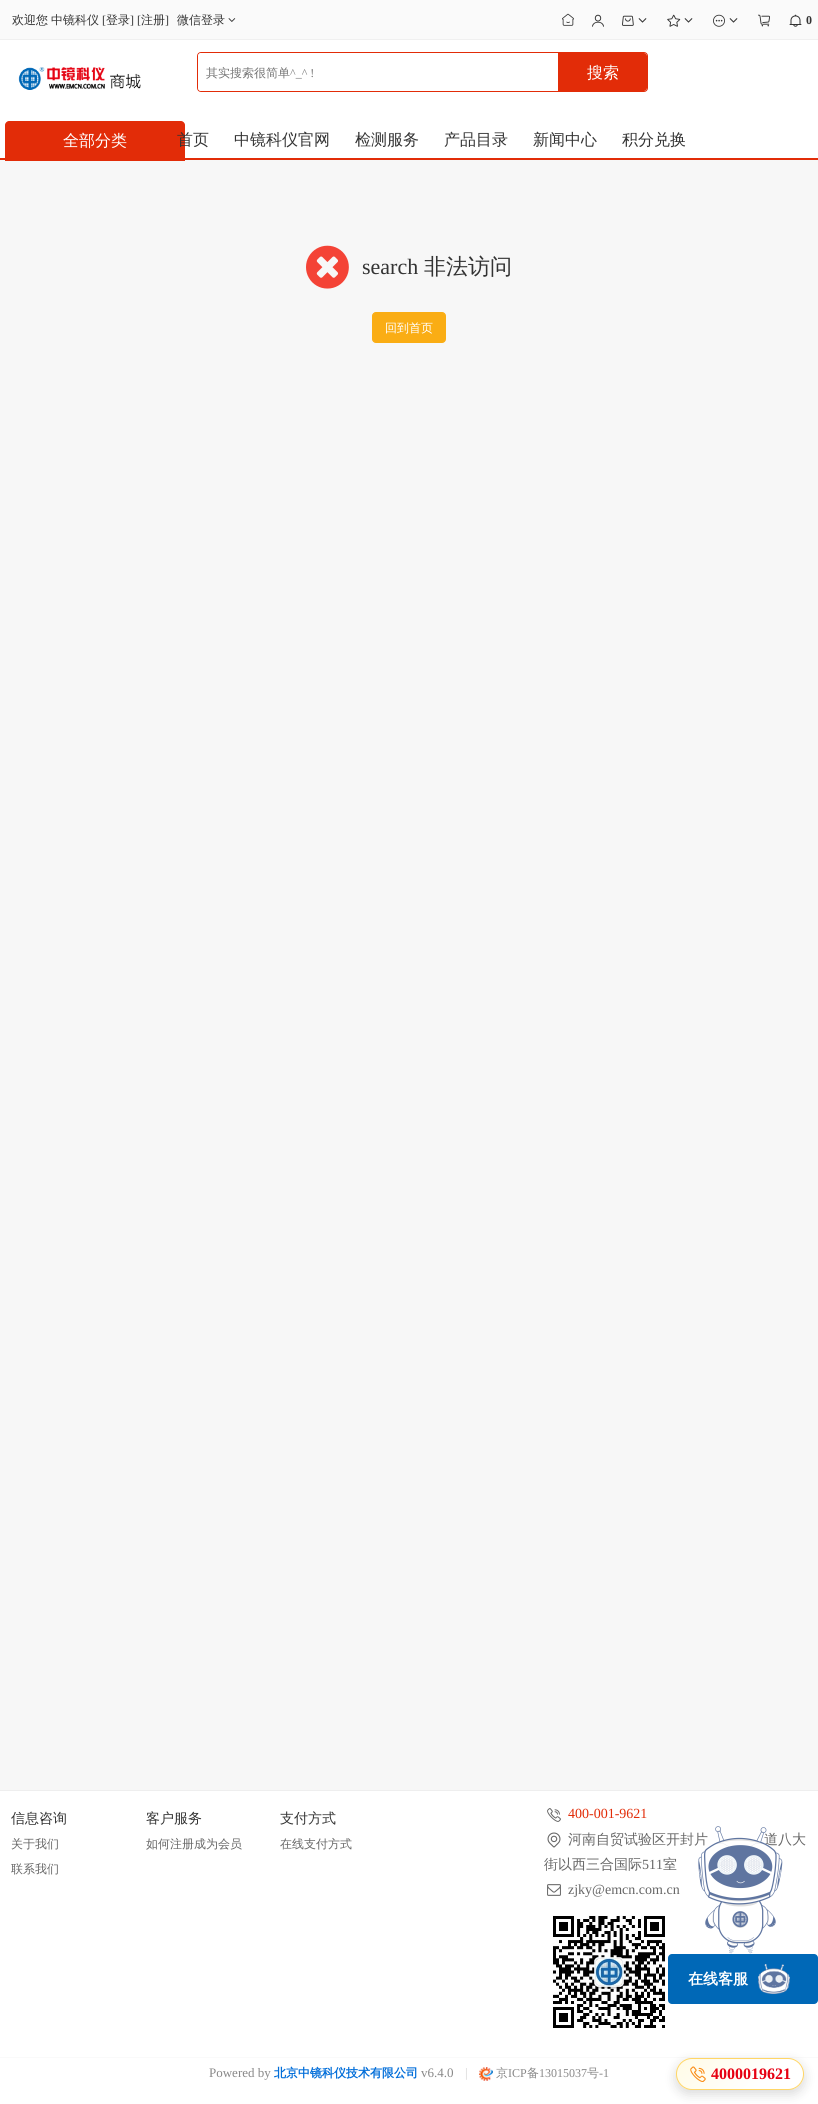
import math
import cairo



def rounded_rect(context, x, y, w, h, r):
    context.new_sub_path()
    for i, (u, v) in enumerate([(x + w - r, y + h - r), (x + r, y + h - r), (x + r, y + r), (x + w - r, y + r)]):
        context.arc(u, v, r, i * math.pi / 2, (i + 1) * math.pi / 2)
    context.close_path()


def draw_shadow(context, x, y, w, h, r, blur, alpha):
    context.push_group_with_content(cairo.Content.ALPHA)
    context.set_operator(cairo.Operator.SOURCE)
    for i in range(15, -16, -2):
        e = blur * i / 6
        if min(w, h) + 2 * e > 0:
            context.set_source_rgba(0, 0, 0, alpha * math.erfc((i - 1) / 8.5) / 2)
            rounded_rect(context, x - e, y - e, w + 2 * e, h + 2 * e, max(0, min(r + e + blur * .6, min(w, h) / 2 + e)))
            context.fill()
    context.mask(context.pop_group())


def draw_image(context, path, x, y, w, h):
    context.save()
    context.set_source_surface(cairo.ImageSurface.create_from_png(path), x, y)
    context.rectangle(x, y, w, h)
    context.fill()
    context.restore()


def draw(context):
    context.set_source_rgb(247 / 255, 247 / 255, 247 / 255)
    context.paint()
    context.set_source_rgb(250 / 255, 250 / 255, 250 / 255)
    context.rectangle(0, 0, 818, 39)
    context.fill()
    context.set_source_rgb(240 / 255, 240 / 255, 240 / 255)
    context.rectangle(0, 39, 818, 1)
    context.fill()
    draw_image(context, "images/1.png", 228, 18, 8, 4)
    draw_image(context, "images/2.png", 562, 13, 12, 13)
    draw_image(context, "images/3.png", 592, 14, 12, 13)
    draw_image(context, "images/4.png", 622, 15, 12, 11)
    draw_image(context, "images/5.png", 638, 18, 9, 5)
    draw_image(context, "images/6.png", 667, 14, 14, 13)
    draw_image(context, "images/5.png", 684, 18, 9, 5)
    draw_image(context, "images/7.png", 713, 14, 12, 13)
    draw_image(context, "images/5.png", 729, 18, 9, 5)
    draw_image(context, "images/8.png", 758, 14, 12, 13)
    draw_image(context, "images/9.png", 789, 14, 13, 13)
    context.set_source_rgb(1, 1, 1)
    context.rectangle(0, 40, 818, 118)
    context.fill()
    draw_image(context, "images/10.png", 18, 67, 123, 23)
    rounded_rect(context, 197.5, 52.5, 450, 39, 3.5)
    context.set_source_rgb(226 / 255, 44 / 255, 8 / 255)
    context.set_line_width(1)
    context.stroke()
    context.set_source_rgb(1, 1, 1)
    context.new_path()
    context.move_to(201, 53)
    context.line_to(557, 53)
    context.line_to(557, 91)
    context.line_to(201, 91)
    context.curve_to(199.5, 91, 198, 89.5, 198, 88)
    context.line_to(198, 56)
    context.curve_to(198, 54.5, 199.5, 53, 201, 53)
    context.close_path()
    context.fill()
    context.set_source_rgb(226 / 255, 44 / 255, 8 / 255)
    context.new_path()
    context.move_to(558, 53)
    context.line_to(644, 53)
    context.curve_to(645.5, 53, 647, 54.5, 647, 56)
    context.line_to(647, 88)
    context.curve_to(647, 89.5, 645.5, 91, 644, 91)
    context.line_to(558, 91)
    context.close_path()
    context.fill()
    context.rectangle(0, 158, 818, 2)
    context.fill()
    context.new_path()
    context.move_to(9, 121)
    context.line_to(181, 121)
    context.curve_to(183, 121, 185, 123, 185, 125)
    context.line_to(185, 161)
    context.line_to(5, 161)
    context.line_to(5, 125)
    context.curve_to(5, 123, 7, 121, 9, 121)
    context.close_path()
    context.fill()
    draw_image(context, "images/11.png", 306, 245, 43, 44)
    context.set_source_rgb(250 / 255, 173 / 255, 20 / 255)
    rounded_rect(context, 372.5, 312.5, 73, 30, 3.5)
    context.fill_preserve()
    context.stroke()
    context.set_source_rgb(1, 1, 1)
    context.rectangle(0, 1791, 818, 313)
    context.fill()
    context.set_source_rgb(238 / 255, 238 / 255, 238 / 255)
    context.rectangle(0, 1790, 818, 1)
    context.fill()
    draw_image(context, "images/12.png", 547, 1808, 14, 14)
    draw_image(context, "images/13.png", 547, 1832, 14, 16)
    draw_image(context, "images/14.png", 547, 1884, 14, 12)
    draw_image(context, "images/15.png", 552, 1915, 113, 113)
    context.set_source_rgb(250 / 255, 250 / 255, 250 / 255)
    context.rectangle(0, 2057, 818, 1)
    context.fill()
    draw_image(context, "images/16.png", 479, 2067, 14, 14)
    context.set_source_rgb(0, 104 / 255, 183 / 255)
    rounded_rect(context, 668, 1954, 150, 50, 4)
    context.fill()
    draw_image(context, "images/18.png", 758, 1964, 32, 30)
    context.set_source_rgb(0, 0, 0)
    draw_shadow(context, 676, 2062, 128, 32, 16, 6, 0.15)
    context.save()
    rounded_rect(context, 676, 2058, 128, 32, 16)
    context.clip()
    gradient = cairo.LinearGradient(701, 2035, 779, 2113)
    gradient.add_color_stop_rgba(0, 1, 251 / 255, 230 / 255, 1)
    gradient.add_color_stop_rgba(0.7, 1, 1, 1, 1)
    context.set_source(gradient)
    context.rectangle(677, 2059, 126, 30)
    context.fill()
    context.restore()
    rounded_rect(context, 676.5, 2058.5, 127, 31, 15.5)
    context.set_source_rgb(1, 214 / 255, 102 / 255)
    context.stroke()
    draw_image(context, "images/19.png", 690, 2066, 16, 16)
    context.select_font_face("WenQuanYi Zen Hei Medium")
    context.set_font_size(12)
    context.set_source_rgb(51 / 255, 51 / 255, 51 / 255)
    context.move_to(12, 24)
    context.show_text("欢迎您")
    context.move_to(51, 24)
    context.show_text("中镜科仪")
    context.select_font_face("Liberation Serif")
    context.move_to(102, 24)
    context.show_text("[")
    context.select_font_face("WenQuanYi Zen Hei Medium")
    context.move_to(106, 24)
    context.show_text("登录")
    context.select_font_face("Liberation Serif")
    context.move_to(130, 24)
    context.show_text("] [")
    context.select_font_face("WenQuanYi Zen Hei Medium")
    context.move_to(141, 24)
    context.show_text("注册")
    context.select_font_face("Liberation Serif")
    context.move_to(165, 24)
    context.show_text("]")
    context.select_font_face("WenQuanYi Zen Hei Medium")
    context.move_to(177, 24)
    context.show_text("微信登录")
    context.select_font_face("Liberation Serif", cairo.FontSlant.NORMAL, cairo.FontWeight.BOLD)
    context.move_to(806, 24)
    context.show_text("0")
    context.select_font_face("WenQuanYi Zen Hei Medium")
    context.set_source_rgb(117 / 255, 117 / 255, 117 / 255)
    context.move_to(206, 77)
    context.show_text("其实搜索很简单")
    context.select_font_face("Liberation Serif")
    context.move_to(290, 77)
    context.show_text("^_^ !")
    context.select_font_face("WenQuanYi Zen Hei Medium")
    context.set_font_size(16)
    context.set_source_rgb(1, 1, 1)
    context.move_to(587, 78)
    context.show_text("搜索")
    context.move_to(63, 146)
    context.show_text("全部分类")
    context.set_source_rgb(51 / 255, 51 / 255, 51 / 255)
    context.move_to(177, 145)
    context.show_text("首页")
    context.move_to(234, 145)
    context.show_text("中镜科仪官网")
    context.move_to(355, 145)
    context.show_text("检测服务")
    context.move_to(444, 145)
    context.show_text("产品目录")
    context.move_to(533, 145)
    context.show_text("新闻中心")
    context.move_to(622, 145)
    context.show_text("积分兑换")
    context.select_font_face("Liberation Serif")
    context.set_font_size(22)
    context.move_to(362, 274)
    context.show_text("search")
    context.select_font_face("WenQuanYi Zen Hei Medium")
    context.move_to(424, 274)
    context.show_text("非法访问")
    context.set_font_size(12)
    context.set_source_rgb(1, 1, 1)
    context.move_to(385, 332)
    context.show_text("回到首页")
    context.set_font_size(14)
    context.set_source_rgb(51 / 255, 51 / 255, 51 / 255)
    context.move_to(11, 1823)
    context.show_text("信息咨询")
    context.set_font_size(12)
    context.set_source_rgb(102 / 255, 102 / 255, 102 / 255)
    context.move_to(11, 1848)
    context.show_text("关于我们")
    context.move_to(11, 1873)
    context.show_text("联系我们")
    context.set_font_size(14)
    context.set_source_rgb(51 / 255, 51 / 255, 51 / 255)
    context.move_to(146, 1823)
    context.show_text("客户服务")
    context.set_font_size(12)
    context.set_source_rgb(102 / 255, 102 / 255, 102 / 255)
    context.move_to(146, 1848)
    context.show_text("如何注册成为会员")
    context.set_font_size(14)
    context.set_source_rgb(51 / 255, 51 / 255, 51 / 255)
    context.move_to(280, 1823)
    context.show_text("支付方式")
    context.set_font_size(12)
    context.set_source_rgb(102 / 255, 102 / 255, 102 / 255)
    context.move_to(280, 1848)
    context.show_text("在线支付方式")
    context.select_font_face("Liberation Serif")
    context.set_font_size(14)
    context.set_source_rgb(226 / 255, 44 / 255, 8 / 255)
    context.move_to(568, 1818)
    context.show_text("400-001-9621")
    context.select_font_face("WenQuanYi Zen Hei Medium")
    context.set_source_rgb(102 / 255, 102 / 255, 102 / 255)
    context.move_to(568, 1844)
    context.show_text("河南自贸试验区开封片")
    context.move_to(764, 1844)
    context.show_text("道八大")
    context.move_to(544, 1869)
    context.show_text("街以西三合国际")
    context.select_font_face("Liberation Serif")
    context.move_to(642, 1869)
    context.show_text("511")
    context.select_font_face("WenQuanYi Zen Hei Medium")
    context.move_to(663, 1869)
    context.show_text("室")
    context.select_font_face("Liberation Serif")
    context.move_to(568, 1894)
    context.show_text("zjky@emcn.com.cn")
    context.set_font_size(13)
    context.set_source_rgb(136 / 255, 136 / 255, 136 / 255)
    context.move_to(209, 2077)
    context.show_text("Powered by")
    context.select_font_face("WenQuanYi Zen Hei", cairo.FontSlant.NORMAL, cairo.FontWeight.BOLD)
    context.set_font_size(12)
    context.set_source_rgb(2 / 255, 110 / 255, 217 / 255)
    context.move_to(274, 2077)
    context.show_text("北京中镜科仪技术有限公司")
    context.select_font_face("Liberation Serif")
    context.set_font_size(13)
    context.set_source_rgb(136 / 255, 136 / 255, 136 / 255)
    context.move_to(421, 2077)
    context.show_text("v6.4.0")
    context.set_source_rgb(212 / 255, 212 / 255, 212 / 255)
    context.move_to(465, 2077)
    context.show_text("|")
    context.select_font_face("WenQuanYi Zen Hei Medium")
    context.set_font_size(12)
    context.set_source_rgb(136 / 255, 136 / 255, 136 / 255)
    context.move_to(496, 2077)
    context.show_text("京")
    context.select_font_face("Liberation Serif")
    context.move_to(508, 2077)
    context.show_text("ICP")
    context.select_font_face("WenQuanYi Zen Hei Medium")
    context.move_to(527, 2077)
    context.show_text("备")
    context.select_font_face("Liberation Serif")
    context.move_to(539, 2077)
    context.show_text("13015037")
    context.select_font_face("WenQuanYi Zen Hei Medium")
    context.move_to(587, 2077)
    context.show_text("号")
    context.select_font_face("Liberation Serif")
    context.move_to(599, 2077)
    context.show_text("-1")
    draw_image(context, "images/17.png", 698, 1826, 85, 128)
    context.select_font_face("WenQuanYi Zen Hei", cairo.FontSlant.NORMAL, cairo.FontWeight.BOLD)
    context.set_font_size(15)
    context.set_source_rgb(1, 1, 1)
    context.move_to(688, 1984)
    context.show_text("在线客服")
    context.select_font_face("Liberation Serif", cairo.FontSlant.NORMAL, cairo.FontWeight.BOLD)
    context.set_font_size(16)
    context.set_source_rgb(230 / 255, 0, 18 / 255)
    context.move_to(711, 2079)
    context.show_text("4000019621")


surface = cairo.ImageSurface(cairo.Format.RGB24, 818, 2104)
context = cairo.Context(surface)
options = cairo.FontOptions()
options.set_hint_metrics(cairo.HintMetrics.OFF)
options.set_hint_style(cairo.HintStyle.NONE)
context.set_font_options(options)
context.set_miter_limit(4)
draw(context)
surface.write_to_png("out.png")
